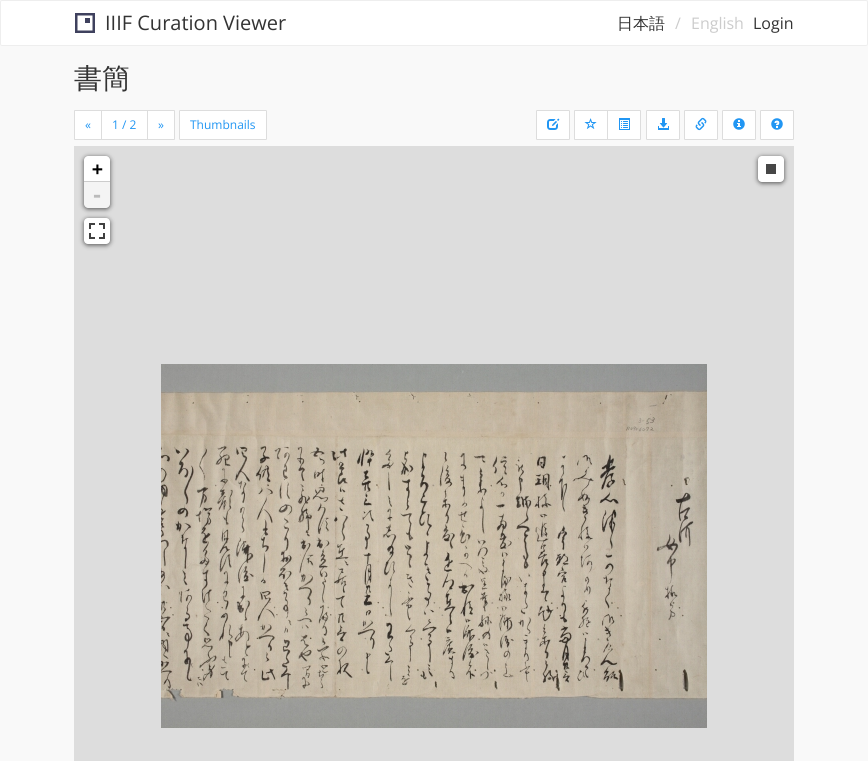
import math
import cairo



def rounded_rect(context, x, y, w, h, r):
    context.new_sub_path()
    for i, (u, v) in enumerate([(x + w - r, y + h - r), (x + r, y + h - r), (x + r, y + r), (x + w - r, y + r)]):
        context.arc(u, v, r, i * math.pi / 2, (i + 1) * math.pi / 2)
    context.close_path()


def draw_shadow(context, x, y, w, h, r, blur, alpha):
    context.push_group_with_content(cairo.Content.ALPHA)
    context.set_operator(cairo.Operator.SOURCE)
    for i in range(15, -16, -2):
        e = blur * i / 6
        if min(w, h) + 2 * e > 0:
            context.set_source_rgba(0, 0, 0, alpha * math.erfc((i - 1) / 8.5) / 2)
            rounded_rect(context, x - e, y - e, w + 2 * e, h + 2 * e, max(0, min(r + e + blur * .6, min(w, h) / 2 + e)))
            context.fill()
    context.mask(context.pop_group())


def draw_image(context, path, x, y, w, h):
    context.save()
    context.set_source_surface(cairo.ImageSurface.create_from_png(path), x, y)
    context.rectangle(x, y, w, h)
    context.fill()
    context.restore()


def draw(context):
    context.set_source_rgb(249 / 255, 249 / 255, 249 / 255)
    context.paint()
    context.set_source_rgb(1, 1, 1)
    rounded_rect(context, 0.5, 0.5, 867, 45, 1.5)
    context.fill_preserve()
    context.set_source_rgb(238 / 255, 238 / 255, 238 / 255)
    context.set_line_width(1)
    context.stroke()
    draw_image(context, "images/1.png", 75, 13, 20, 20)
    context.set_source_rgb(1, 1, 1)
    context.new_path()
    context.move_to(75, 110.5)
    context.line_to(101.5, 110.5)
    context.line_to(101.5, 139.5)
    context.line_to(75, 139.5)
    context.curve_to(74.5, 139.5, 74.5, 139.5, 74.5, 139)
    context.line_to(74.5, 111)
    context.curve_to(74.5, 110.5, 74.5, 110.5, 75, 110.5)
    context.close_path()
    context.fill_preserve()
    context.set_source_rgb(221 / 255, 221 / 255, 221 / 255)
    context.stroke()
    context.set_source_rgb(1, 1, 1)
    context.rectangle(101.5, 110.5, 46, 29)
    context.fill_preserve()
    context.set_source_rgb(221 / 255, 221 / 255, 221 / 255)
    context.stroke()
    context.set_source_rgb(1, 1, 1)
    context.new_path()
    context.move_to(147.5, 110.5)
    context.line_to(174, 110.5)
    context.curve_to(174.5, 110.5, 174.5, 110.5, 174.5, 111)
    context.line_to(174.5, 139)
    context.curve_to(174.5, 139.5, 174.5, 139.5, 174, 139.5)
    context.line_to(147.5, 139.5)
    context.close_path()
    context.fill_preserve()
    context.set_source_rgb(221 / 255, 221 / 255, 221 / 255)
    context.stroke()
    context.set_source_rgb(1, 1, 1)
    rounded_rect(context, 179.5, 110.5, 87, 29, 0.5)
    context.fill_preserve()
    context.set_source_rgb(221 / 255, 221 / 255, 221 / 255)
    context.stroke()
    context.set_source_rgb(1, 1, 1)
    rounded_rect(context, 536.5, 110.5, 33, 29, 0.5)
    context.fill_preserve()
    context.set_source_rgb(221 / 255, 221 / 255, 221 / 255)
    context.stroke()
    draw_image(context, "images/2.png", 547, 118, 13, 12)
    context.set_source_rgb(1, 1, 1)
    context.new_path()
    context.move_to(575, 110.5)
    context.line_to(607.5, 110.5)
    context.line_to(607.5, 139.5)
    context.line_to(575, 139.5)
    context.curve_to(574.5, 139.5, 574.5, 139.5, 574.5, 139)
    context.line_to(574.5, 111)
    context.curve_to(574.5, 110.5, 574.5, 110.5, 575, 110.5)
    context.close_path()
    context.fill_preserve()
    context.set_source_rgb(221 / 255, 221 / 255, 221 / 255)
    context.stroke()
    draw_image(context, "images/3.png", 584, 118, 13, 11)
    context.set_source_rgb(1, 1, 1)
    context.new_path()
    context.move_to(607.5, 110.5)
    context.line_to(640, 110.5)
    context.curve_to(640.5, 110.5, 640.5, 110.5, 640.5, 111)
    context.line_to(640.5, 139)
    context.curve_to(640.5, 139.5, 640.5, 139.5, 640, 139.5)
    context.line_to(607.5, 139.5)
    context.close_path()
    context.fill_preserve()
    context.set_source_rgb(221 / 255, 221 / 255, 221 / 255)
    context.stroke()
    draw_image(context, "images/4.png", 619, 118, 11, 12)
    context.set_source_rgb(1, 1, 1)
    rounded_rect(context, 646.5, 110.5, 33, 29, 0.5)
    context.fill_preserve()
    context.set_source_rgb(221 / 255, 221 / 255, 221 / 255)
    context.stroke()
    draw_image(context, "images/5.png", 658, 118, 11, 12)
    context.set_source_rgb(1, 1, 1)
    rounded_rect(context, 684.5, 110.5, 33, 29, 0.5)
    context.fill_preserve()
    context.set_source_rgb(221 / 255, 221 / 255, 221 / 255)
    context.stroke()
    draw_image(context, "images/6.png", 695, 117, 12, 14)
    context.set_source_rgb(1, 1, 1)
    rounded_rect(context, 722.5, 110.5, 33, 29, 0.5)
    context.fill_preserve()
    context.set_source_rgb(221 / 255, 221 / 255, 221 / 255)
    context.stroke()
    draw_image(context, "images/7.png", 733, 118, 12, 12)
    context.set_source_rgb(1, 1, 1)
    rounded_rect(context, 760.5, 110.5, 33, 29, 0.5)
    context.fill_preserve()
    context.set_source_rgb(221 / 255, 221 / 255, 221 / 255)
    context.stroke()
    draw_image(context, "images/8.png", 771, 118, 12, 12)
    context.rectangle(74, 146, 720, 615)
    context.fill()
    context.set_source_rgb(0, 0, 0)
    draw_shadow(context, 84, 157, 26, 52, 4, 2.5, 0.65)
    context.set_source_rgb(1, 1, 1)
    context.new_path()
    context.move_to(88, 156)
    context.line_to(106, 156)
    context.curve_to(108, 156, 110, 158, 110, 160)
    context.line_to(110, 182)
    context.line_to(84, 182)
    context.line_to(84, 160)
    context.curve_to(84, 158, 86, 156, 88, 156)
    context.close_path()
    context.fill()
    context.set_source_rgb(204 / 255, 204 / 255, 204 / 255)
    context.rectangle(84, 181, 26, 1)
    context.fill()
    context.set_source_rgb(244 / 255, 244 / 255, 244 / 255)
    context.new_path()
    context.move_to(84, 182)
    context.line_to(110, 182)
    context.line_to(110, 204)
    context.curve_to(110, 206, 108, 208, 106, 208)
    context.line_to(88, 208)
    context.curve_to(86, 208, 84, 206, 84, 204)
    context.close_path()
    context.fill()
    context.set_source_rgb(0, 0, 0)
    draw_shadow(context, 84, 219, 26, 26, 4, 2.5, 0.65)
    context.set_source_rgb(1, 1, 1)
    rounded_rect(context, 84, 218, 26, 26, 4)
    context.fill()
    draw_image(context, "images/9.png", 89, 223, 16, 16)
    context.set_source_rgb(0, 0, 0)
    draw_shadow(context, 758, 157, 26, 26, 4, 2.5, 0.65)
    context.set_source_rgb(1, 1, 1)
    rounded_rect(context, 758, 156, 26, 26, 4)
    context.fill()
    context.set_source_rgb(70 / 255, 70 / 255, 70 / 255)
    context.rectangle(766, 164, 10, 10)
    context.fill()
    draw_image(context, "images/10.png", 161, 364, 546, 364)
    context.select_font_face("Open Sans")
    context.set_font_size(20)
    context.set_source_rgb(51 / 255, 51 / 255, 51 / 255)
    context.move_to(105, 30)
    context.show_text("IIIF Curation Viewer")
    context.select_font_face("WenQuanYi Zen Hei Medium")
    context.set_font_size(16)
    context.move_to(617, 29)
    context.show_text("日本語")
    context.select_font_face("Open Sans")
    context.set_source_rgb(204 / 255, 204 / 255, 204 / 255)
    context.move_to(675, 29)
    context.show_text("/")
    context.move_to(691, 29)
    context.show_text("English")
    context.set_source_rgb(51 / 255, 51 / 255, 51 / 255)
    context.move_to(753, 29)
    context.show_text("Login")
    context.select_font_face("WenQuanYi Zen Hei Medium")
    context.set_font_size(28)
    context.move_to(74, 88)
    context.show_text("書簡")
    context.select_font_face("Open Sans")
    context.set_font_size(12)
    context.set_source_rgb(33 / 255, 150 / 255, 243 / 255)
    context.move_to(85, 129)
    context.show_text("«")
    context.move_to(112, 129)
    context.show_text("1 / 2")
    context.move_to(158, 129)
    context.show_text("»")
    context.move_to(190, 129)
    context.show_text("Thumbnails")
    context.select_font_face("DejaVu Sans Mono", cairo.FontSlant.NORMAL, cairo.FontWeight.BOLD)
    context.set_font_size(18)
    context.set_source_rgb(0, 0, 0)
    context.move_to(92, 175)
    context.show_text("+")
    context.set_font_size(20)
    context.set_source_rgb(187 / 255, 187 / 255, 187 / 255)
    context.move_to(91, 202)
    context.show_text("-")


surface = cairo.ImageSurface(cairo.Format.RGB24, 868, 761)
context = cairo.Context(surface)
options = cairo.FontOptions()
options.set_hint_metrics(cairo.HintMetrics.OFF)
options.set_hint_style(cairo.HintStyle.NONE)
context.set_font_options(options)
context.set_miter_limit(4)
draw(context)
surface.write_to_png("out.png")
